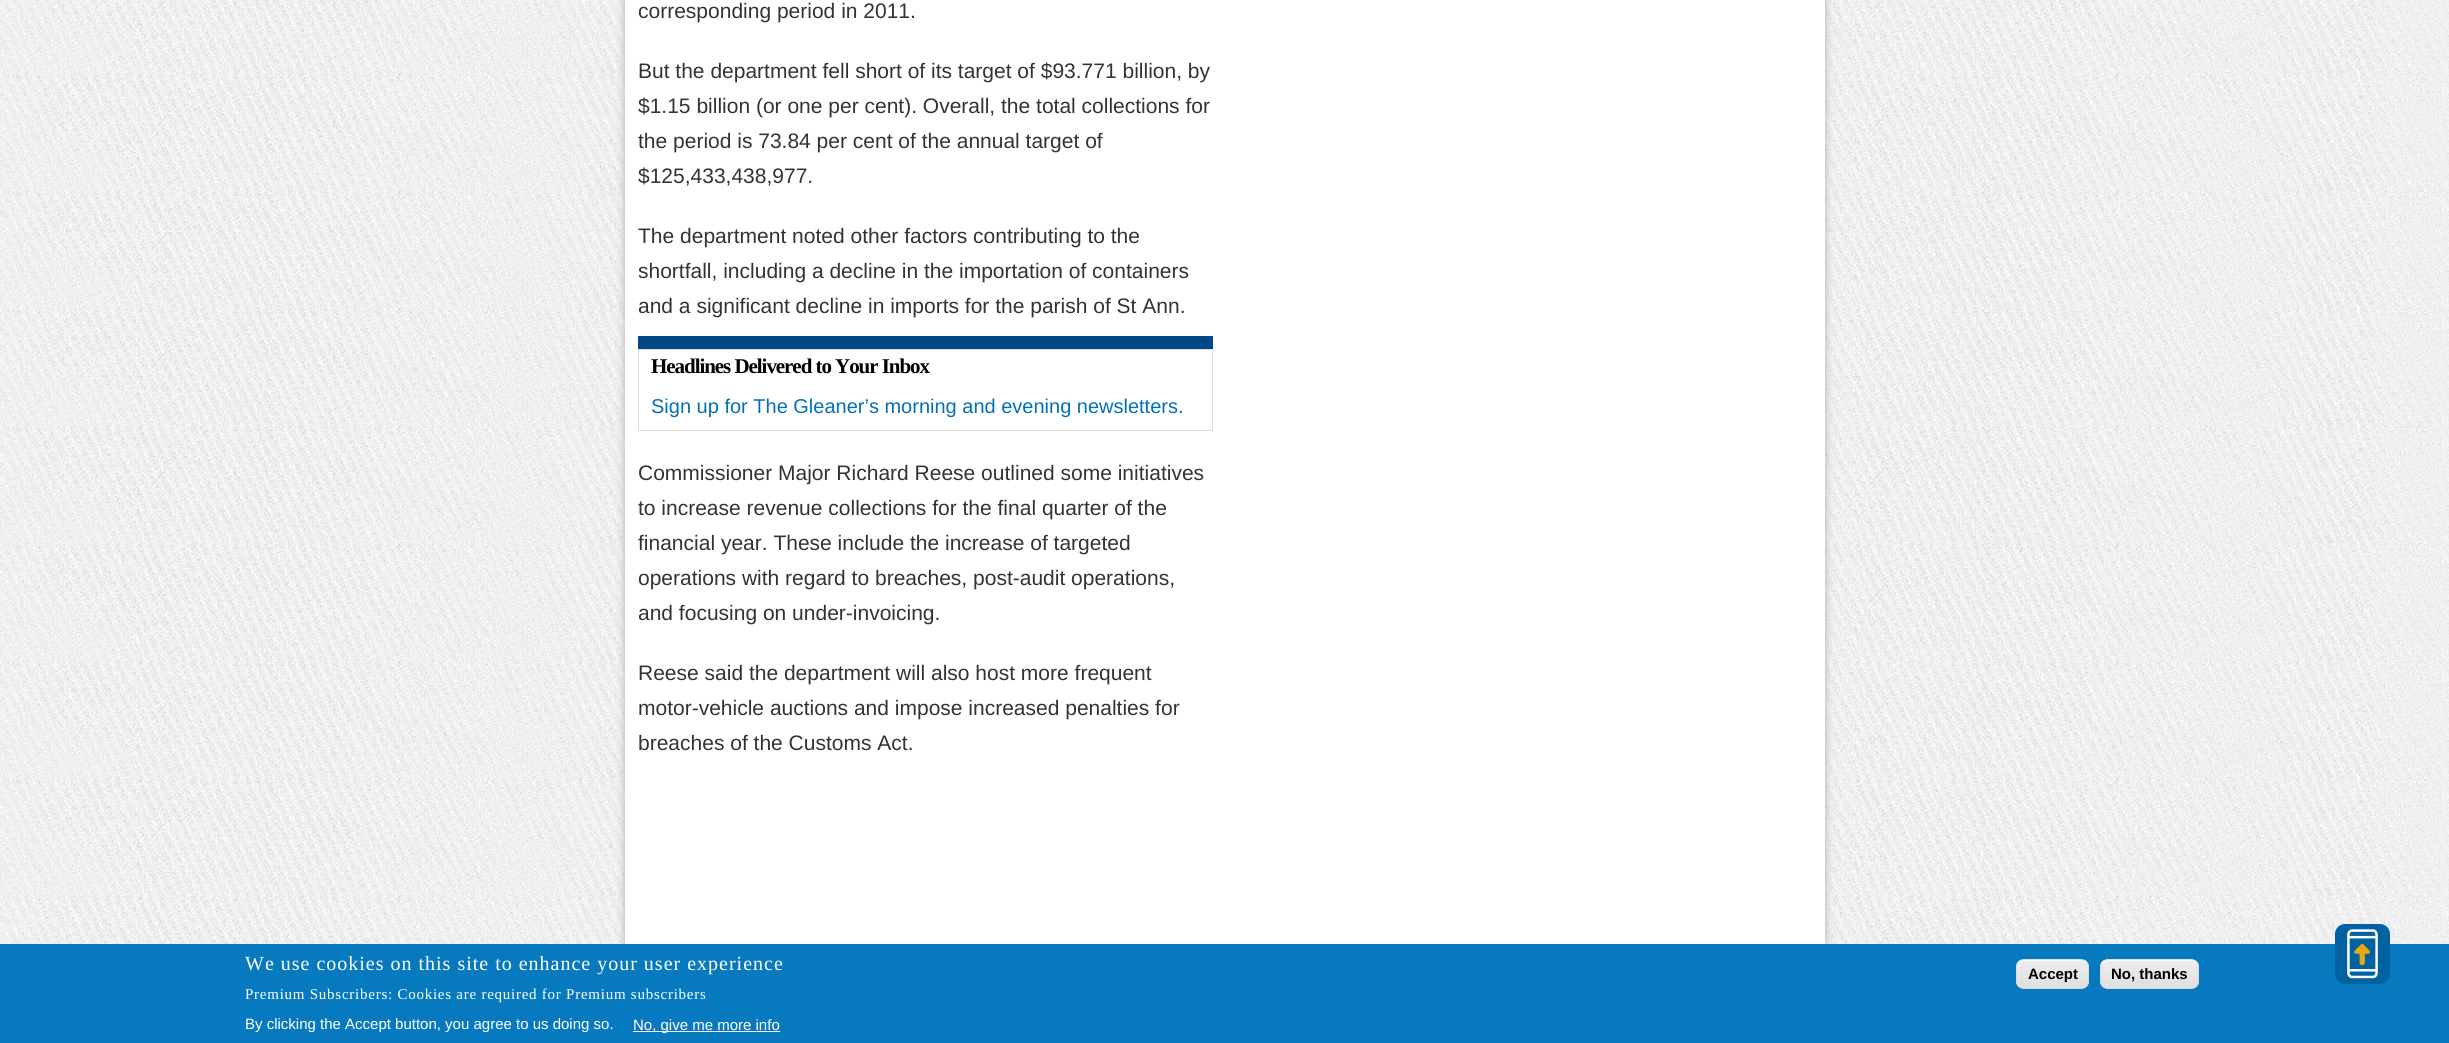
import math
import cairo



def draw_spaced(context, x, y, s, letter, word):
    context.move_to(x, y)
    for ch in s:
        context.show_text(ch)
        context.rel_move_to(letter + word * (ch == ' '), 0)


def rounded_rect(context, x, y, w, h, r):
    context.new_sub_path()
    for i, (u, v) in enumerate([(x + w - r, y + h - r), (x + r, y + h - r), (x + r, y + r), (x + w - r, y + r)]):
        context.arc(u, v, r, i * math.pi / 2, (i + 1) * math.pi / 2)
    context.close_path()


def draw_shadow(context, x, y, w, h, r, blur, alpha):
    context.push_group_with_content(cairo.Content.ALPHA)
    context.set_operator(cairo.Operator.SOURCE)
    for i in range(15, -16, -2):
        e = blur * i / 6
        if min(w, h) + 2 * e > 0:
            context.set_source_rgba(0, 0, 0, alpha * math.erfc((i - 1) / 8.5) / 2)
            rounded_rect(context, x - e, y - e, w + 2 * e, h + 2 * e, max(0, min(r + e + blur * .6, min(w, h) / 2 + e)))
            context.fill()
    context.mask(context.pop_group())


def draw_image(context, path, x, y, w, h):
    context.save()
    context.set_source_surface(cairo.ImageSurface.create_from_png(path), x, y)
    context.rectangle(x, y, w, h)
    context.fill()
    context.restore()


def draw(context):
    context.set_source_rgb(1, 1, 1)
    context.paint()
    draw_image(context, "images/1.png", 0, 0, 2449, 944)
    context.set_source_rgb(187 / 255, 187 / 255, 187 / 255)
    draw_shadow(context, 624, -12, 1202, 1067, 0, 4, 1)
    context.set_source_rgb(1, 1, 1)
    context.rectangle(625, 0, 1200, 944)
    context.fill()
    context.set_source_rgb(1 / 255, 72 / 255, 137 / 255)
    context.rectangle(638, 336, 575, 13)
    context.fill()
    context.rectangle(638.5, 349.5, 574, 81)
    context.set_source_rgb(221 / 255, 221 / 255, 221 / 255)
    context.set_line_width(1)
    context.stroke()
    context.set_source_rgb(7 / 255, 121 / 255, 191 / 255)
    context.rectangle(0, 944, 2449, 99)
    context.fill()
    context.set_source_rgb(1, 1, 1)
    context.rectangle(633, 1031, 147, 1)
    context.fill()
    context.save()
    rounded_rect(context, 2016, 959, 73, 30, 8)
    context.clip()
    gradient = cairo.LinearGradient(2053, 960, 2053, 988)
    gradient.add_color_stop_rgba(0.05, 237 / 255, 237 / 255, 237 / 255, 1)
    gradient.add_color_stop_rgba(1, 223 / 255, 223 / 255, 223 / 255, 1)
    context.set_source(gradient)
    context.rectangle(2016, 960, 73, 28)
    context.fill()
    context.restore()
    context.new_path()
    context.move_to(2024, 961)
    context.line_to(2081, 961)
    context.curve_to(2085, 961, 2088, 964, 2088, 968)
    context.curve_to(2088, 958, 2081, 960, 2072, 960)
    context.line_to(2034, 960)
    context.curve_to(2025, 960, 2018, 958, 2018, 968)
    context.curve_to(2018, 964, 2020, 961, 2024, 961)
    context.close_path()
    context.fill()
    rounded_rect(context, 2016.5, 959.5, 72, 29, 7.5)
    context.set_source_rgb(220 / 255, 220 / 255, 220 / 255)
    context.stroke()
    context.save()
    rounded_rect(context, 2100, 959, 99, 30, 8)
    context.clip()
    gradient = cairo.LinearGradient(2149, 960, 2149, 988)
    gradient.add_color_stop_rgba(0.05, 237 / 255, 237 / 255, 237 / 255, 1)
    gradient.add_color_stop_rgba(1, 223 / 255, 223 / 255, 223 / 255, 1)
    context.set_source(gradient)
    context.rectangle(2100, 960, 99, 28)
    context.fill()
    context.restore()
    context.set_source_rgb(1, 1, 1)
    context.new_path()
    context.move_to(2108, 961)
    context.line_to(2191, 961)
    context.curve_to(2195, 961, 2198, 964, 2198, 968)
    context.curve_to(2198, 956, 2187, 960, 2178, 960)
    context.line_to(2121, 960)
    context.curve_to(2112, 960, 2101, 956, 2101, 968)
    context.curve_to(2101, 964, 2104, 961, 2108, 961)
    context.close_path()
    context.fill()
    rounded_rect(context, 2100.5, 959.5, 98, 29, 7.5)
    context.set_source_rgb(220 / 255, 220 / 255, 220 / 255)
    context.stroke()
    context.set_source_rgb(0, 98 / 255, 160 / 255)
    rounded_rect(context, 2335, 924, 55, 60, 10)
    context.fill()
    draw_image(context, "images/2.png", 2347, 929, 31, 50)
    context.select_font_face("Liberation Sans")
    context.set_font_size(21)
    context.set_source_rgb(51 / 255, 51 / 255, 51 / 255)
    context.move_to(638, 18)
    context.show_text("corresponding period in 2011.")
    context.move_to(638, 78)
    context.show_text("But the department fell short of its target of $93.771 billion, by")
    context.move_to(638, 113)
    context.show_text("$1.15 billion (or one per cent). Overall, the total collections for")
    context.move_to(638, 148)
    context.show_text("the period is 73.84 per cent of the annual target of")
    context.move_to(638, 183)
    context.show_text("$125,433,438,977.")
    context.move_to(638, 243)
    context.show_text("The department noted other factors contributing to the")
    context.move_to(638, 278)
    context.show_text("shortfall, including a decline in the importation of containers")
    context.move_to(638, 313)
    context.show_text("and a significant decline in imports for the parish of St Ann.")
    context.select_font_face("Liberation Serif", cairo.FontSlant.NORMAL, cairo.FontWeight.BOLD)
    context.set_source_rgb(0, 0, 0)
    draw_spaced(context, 651, 373, "Headlines Delivered to Your Inbox", -1.05, 0)
    context.select_font_face("Liberation Sans")
    context.set_font_size(20)
    context.set_source_rgb(0, 113 / 255, 184 / 255)
    context.move_to(651, 413)
    context.show_text("Sign up for The Gleaner’s morning and evening newsletters.")
    context.set_font_size(21)
    context.set_source_rgb(51 / 255, 51 / 255, 51 / 255)
    context.move_to(638, 480)
    context.show_text("Commissioner Major Richard Reese outlined some initiatives")
    context.move_to(638, 515)
    context.show_text("to increase revenue collections for the final quarter of the")
    context.move_to(638, 550)
    context.show_text("financial year. These include the increase of targeted")
    context.move_to(638, 585)
    context.show_text("operations with regard to breaches, post-audit operations,")
    context.move_to(638, 620)
    context.show_text("and focusing on under-invoicing.")
    context.move_to(638, 680)
    context.show_text("Reese said the department will also host more frequent")
    context.move_to(638, 715)
    context.show_text("motor-vehicle auctions and impose increased penalties for")
    context.move_to(638, 750)
    context.show_text("breaches of the Customs Act.")
    context.select_font_face("Liberation Serif")
    context.set_font_size(20)
    context.set_source_rgb(1, 1, 1)
    draw_spaced(context, 245, 970, "We use cookies on this site to enhance your user experience", 1, 0)
    context.set_font_size(15)
    draw_spaced(context, 245, 999, "Premium Subscribers: Cookies are required for Premium subscribers", 0.75, 0)
    context.select_font_face("Liberation Sans")
    context.move_to(245, 1029)
    context.show_text("By clicking the Accept button, you agree to us doing so.")
    context.move_to(633, 1030)
    context.show_text("No, give me more info")
    context.select_font_face("Liberation Sans", cairo.FontSlant.NORMAL, cairo.FontWeight.BOLD)
    context.set_source_rgb(0, 0, 0)
    context.move_to(2028, 979)
    context.show_text("Accept")
    context.move_to(2111, 979)
    context.show_text("No, thanks")


surface = cairo.ImageSurface(cairo.Format.RGB24, 2449, 1043)
context = cairo.Context(surface)
options = cairo.FontOptions()
options.set_hint_metrics(cairo.HintMetrics.OFF)
options.set_hint_style(cairo.HintStyle.NONE)
context.set_font_options(options)
context.set_miter_limit(4)
draw(context)
surface.write_to_png("out.png")
